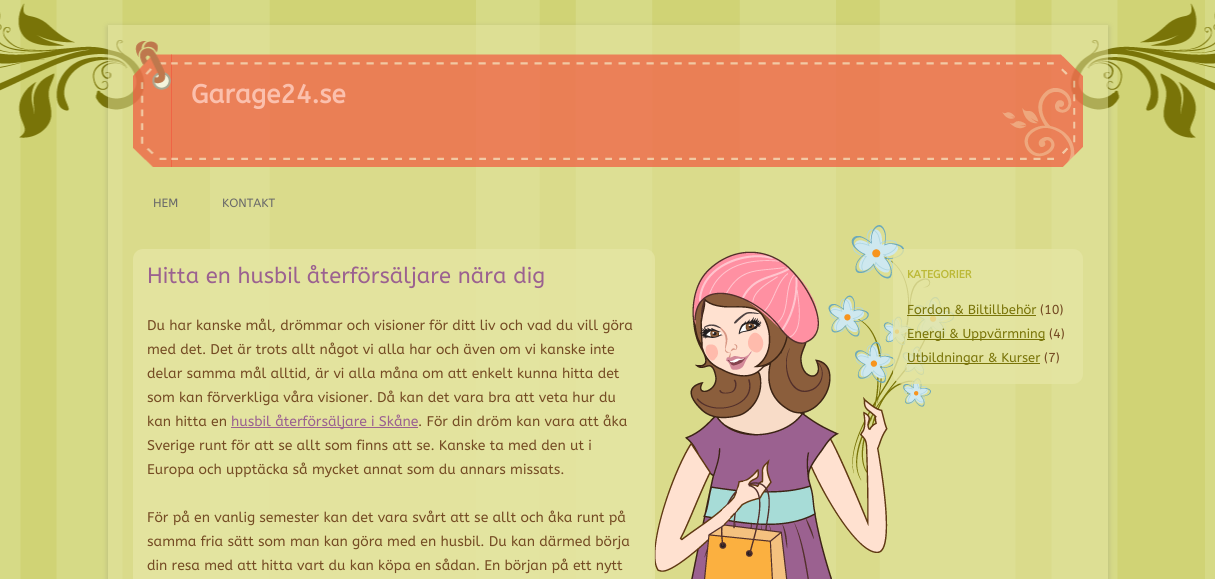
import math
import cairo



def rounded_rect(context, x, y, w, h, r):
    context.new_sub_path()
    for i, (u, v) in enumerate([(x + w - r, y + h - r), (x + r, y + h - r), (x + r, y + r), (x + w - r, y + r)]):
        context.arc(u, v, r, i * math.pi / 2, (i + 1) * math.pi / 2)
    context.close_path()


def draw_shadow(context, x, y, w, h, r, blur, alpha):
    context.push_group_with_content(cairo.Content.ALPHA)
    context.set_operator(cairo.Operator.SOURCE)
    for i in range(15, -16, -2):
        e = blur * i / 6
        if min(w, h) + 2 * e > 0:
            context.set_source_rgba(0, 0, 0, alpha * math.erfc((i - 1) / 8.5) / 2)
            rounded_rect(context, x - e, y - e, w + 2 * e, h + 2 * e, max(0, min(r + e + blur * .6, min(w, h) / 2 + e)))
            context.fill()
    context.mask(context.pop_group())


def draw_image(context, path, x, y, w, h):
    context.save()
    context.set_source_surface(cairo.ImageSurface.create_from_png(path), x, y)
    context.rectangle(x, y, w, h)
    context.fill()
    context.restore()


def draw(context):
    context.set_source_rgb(1, 1, 1)
    context.paint()
    draw_image(context, "images/1.png", 0, 0, 1215, 579)
    context.save()
    context.set_fill_rule(cairo.FillRule.EVEN_ODD)
    context.new_path()
    context.move_to(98, 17)
    context.line_to(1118, 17)
    context.line_to(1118, 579)
    context.line_to(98, 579)
    context.close_path()
    context.move_to(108, 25)
    context.line_to(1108, 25)
    context.line_to(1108, 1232)
    context.line_to(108, 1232)
    context.close_path()
    context.clip()
    context.set_source_rgb(100 / 255, 100 / 255, 100 / 255)
    draw_shadow(context, 108, 27, 1000, 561, 0, 3, 0.3)
    context.restore()
    context.set_source_rgba(229 / 255, 229 / 255, 163 / 255, 0.5)
    context.rectangle(108, 25, 1000, 554)
    context.fill()
    draw_image(context, "images/2.png", 133, 41, 950, 126)
    draw_image(context, "images/3.png", 171, 54, 829, 113)
    draw_image(context, "images/4.png", 654, 225, 300, 354)
    context.set_source_rgba(229 / 255, 229 / 255, 163 / 255, 0.8)
    rounded_rect(context, 133, 249, 522, 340, 10)
    context.fill()
    context.set_source_rgb(155 / 255, 97 / 255, 144 / 255)
    context.rectangle(231, 427, 187, 1)
    context.fill()
    context.set_source_rgba(229 / 255, 229 / 255, 163 / 255, 0.8)
    rounded_rect(context, 893, 249, 190, 135, 10)
    context.fill()
    context.set_source_rgb(121 / 255, 116 / 255, 8 / 255)
    context.rectangle(907, 315, 129, 1)
    context.fill()
    context.rectangle(907, 339, 138, 1)
    context.fill()
    context.rectangle(907, 363, 133, 1)
    context.fill()
    context.select_font_face("ABeeZee", cairo.FontSlant.NORMAL, cairo.FontWeight.BOLD)
    context.set_font_size(26)
    context.set_source_rgb(251 / 255, 192 / 255, 173 / 255)
    context.move_to(191, 103)
    context.show_text("Garage24.se")
    context.select_font_face("ABeeZee")
    context.set_font_size(12)
    context.set_source_rgb(106 / 255, 106 / 255, 106 / 255)
    context.move_to(153, 207)
    context.show_text("HEM")
    context.move_to(222, 207)
    context.show_text("KONTAKT")
    context.set_font_size(22)
    context.set_source_rgb(155 / 255, 97 / 255, 144 / 255)
    context.move_to(147, 283)
    context.show_text("Hitta en husbil återförsäljare nära dig")
    context.set_font_size(14)
    context.set_source_rgb(117 / 255, 76 / 255, 36 / 255)
    context.move_to(147, 330)
    context.show_text("Du har kanske mål, drömmar och visioner för ditt liv och vad du vill göra")
    context.move_to(147, 354)
    context.show_text("med det. Det är trots allt något vi alla har och även om vi kanske inte")
    context.move_to(147, 378)
    context.show_text("delar samma mål alltid, är vi alla måna om att enkelt kunna hitta det")
    context.move_to(147, 402)
    context.show_text("som kan förverkliga våra visioner. Då kan det vara bra att veta hur du")
    context.move_to(147, 426)
    context.show_text("kan hitta en")
    context.set_source_rgb(155 / 255, 97 / 255, 144 / 255)
    context.move_to(231, 426)
    context.show_text("husbil återförsäljare i Skåne")
    context.set_source_rgb(117 / 255, 76 / 255, 36 / 255)
    context.move_to(418, 426)
    context.show_text(". För din dröm kan vara att åka")
    context.move_to(147, 450)
    context.show_text("Sverige runt för att se allt som finns att se. Kanske ta med den ut i")
    context.move_to(147, 474)
    context.show_text("Europa och upptäcka så mycket annat som du annars missats.")
    context.move_to(147, 522)
    context.show_text("För på en vanlig semester kan det vara svårt att se allt och åka runt på")
    context.move_to(147, 546)
    context.show_text("samma fria sätt som man kan göra med en husbil. Du kan därmed börja")
    context.move_to(147, 570)
    context.show_text("din resa med att hitta vart du kan köpa en sådan. En början på ett nytt")
    context.select_font_face("ABeeZee", cairo.FontSlant.NORMAL, cairo.FontWeight.BOLD)
    context.set_font_size(11)
    context.set_source_rgb(188 / 255, 185 / 255, 55 / 255)
    context.move_to(907, 278)
    context.show_text("KATEGORIER")
    context.select_font_face("ABeeZee")
    context.set_font_size(13)
    context.set_source_rgb(121 / 255, 116 / 255, 8 / 255)
    context.move_to(907, 314)
    context.show_text("Fordon & Biltillbehör")
    context.set_source_rgb(117 / 255, 76 / 255, 36 / 255)
    context.move_to(1040, 314)
    context.show_text("(10)")
    context.set_source_rgb(121 / 255, 116 / 255, 8 / 255)
    context.move_to(907, 338)
    context.show_text("Energi & Uppvärmning")
    context.set_source_rgb(117 / 255, 76 / 255, 36 / 255)
    context.move_to(1049, 338)
    context.show_text("(4)")
    context.set_source_rgb(121 / 255, 116 / 255, 8 / 255)
    context.move_to(907, 362)
    context.show_text("Utbildningar & Kurser")
    context.set_source_rgb(117 / 255, 76 / 255, 36 / 255)
    context.move_to(1044, 362)
    context.show_text("(7)")


surface = cairo.ImageSurface(cairo.Format.RGB24, 1215, 579)
context = cairo.Context(surface)
options = cairo.FontOptions()
options.set_hint_metrics(cairo.HintMetrics.OFF)
options.set_hint_style(cairo.HintStyle.NONE)
context.set_font_options(options)
context.set_miter_limit(4)
draw(context)
surface.write_to_png("out.png")
